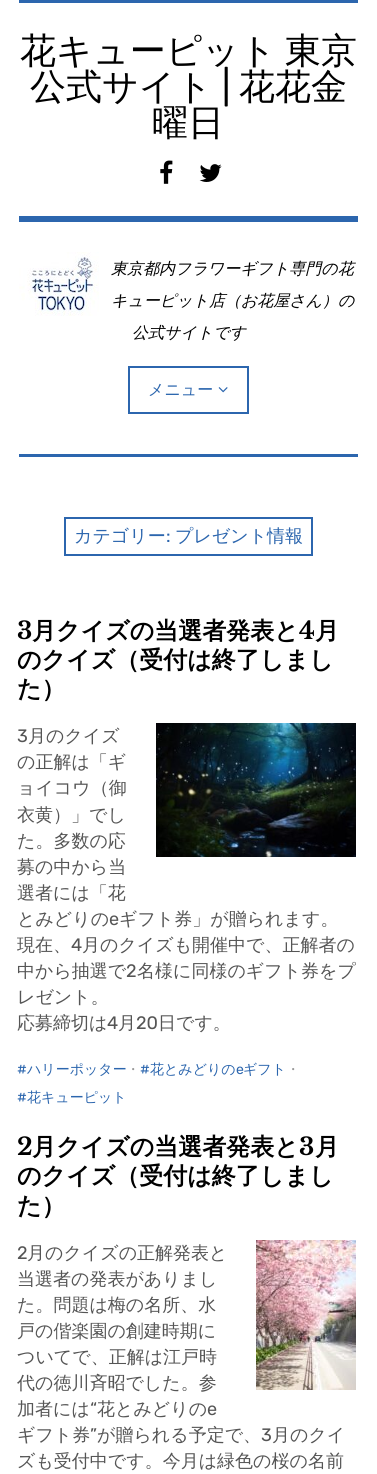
import math
import cairo



def draw_spaced(context, x, y, s, letter, word):
    context.move_to(x, y)
    for ch in s:
        context.show_text(ch)
        context.rel_move_to(letter + word * (ch == ' '), 0)


def draw_image(context, path, x, y, w, h):
    context.save()
    context.set_source_surface(cairo.ImageSurface.create_from_png(path), x, y)
    context.rectangle(x, y, w, h)
    context.fill()
    context.restore()


def draw(context):
    context.set_source_rgb(1, 1, 1)
    context.paint()
    context.set_source_rgb(44 / 255, 102 / 255, 174 / 255)
    context.rectangle(19, 0, 339, 3)
    context.fill()
    context.rectangle(19, 216, 339, 6)
    context.fill()
    draw_image(context, "images/1.png", 160, 160, 13, 24)
    draw_image(context, "images/2.png", 199, 164, 23, 18)
    draw_image(context, "images/3.png", 19, 252, 80, 64)
    context.rectangle(129, 367, 119, 46)
    context.stroke()
    draw_image(context, "images/4.png", 218, 387, 10, 6)
    context.rectangle(19, 454, 339, 3)
    context.fill()
    context.rectangle(65, 518, 247, 37)
    context.stroke()
    draw_image(context, "images/5.png", 156, 723, 200, 134)
    draw_image(context, "images/6.png", 256, 1240, 100, 150)
    context.select_font_face("WenQuanYi Zen Hei Medium")
    context.set_font_size(36)
    context.set_source_rgb(0, 0, 0)
    draw_spaced(context, 20, 63, "花キューピット 東京", 0, -2)
    context.move_to(30, 99)
    context.show_text("公式サイト")
    context.select_font_face("Rubik")
    context.move_to(222, 99)
    context.show_text("|")
    context.select_font_face("WenQuanYi Zen Hei Medium")
    context.move_to(239, 99)
    context.show_text("花花金")
    context.move_to(152, 135)
    context.show_text("曜日")
    context.select_font_face("WenQuanYi Zen Hei Medium", cairo.FontSlant.ITALIC)
    context.set_font_size(16)
    context.move_to(111, 274)
    context.show_text("東京都内フラワーギフト専門の花")
    context.move_to(111, 306)
    context.show_text("キューピット店（お花屋さん）の")
    context.move_to(132, 338)
    context.show_text("公式サイトです")
    context.select_font_face("WenQuanYi Zen Hei Medium")
    context.set_source_rgb(44 / 255, 102 / 255, 174 / 255)
    context.move_to(148, 395)
    context.show_text("メニュー")
    context.set_font_size(18)
    context.move_to(74, 542)
    context.show_text("カテゴリー")
    context.select_font_face("Rubik")
    context.move_to(166, 542)
    context.show_text(":")
    context.select_font_face("WenQuanYi Zen Hei Medium")
    context.move_to(175, 542)
    context.show_text("プレゼント情報")
    context.select_font_face("Libre Baskerville", cairo.FontSlant.NORMAL, cairo.FontWeight.BOLD)
    context.set_font_size(24)
    context.set_source_rgb(0, 0, 0)
    context.move_to(17, 639)
    context.show_text("3")
    context.select_font_face("WenQuanYi Zen Hei", cairo.FontSlant.NORMAL, cairo.FontWeight.BOLD)
    context.move_to(32, 639)
    context.show_text("月クイズの当選者発表と")
    context.select_font_face("Libre Baskerville", cairo.FontSlant.NORMAL, cairo.FontWeight.BOLD)
    context.move_to(299, 639)
    context.show_text("4")
    context.select_font_face("WenQuanYi Zen Hei", cairo.FontSlant.NORMAL, cairo.FontWeight.BOLD)
    context.move_to(315, 639)
    context.show_text("月")
    context.move_to(17, 668)
    context.show_text("のクイズ（受付は終了しまし")
    context.move_to(17, 697)
    context.show_text("た）")
    context.select_font_face("Rubik")
    context.set_font_size(18)
    context.set_source_rgb(85 / 255, 85 / 255, 85 / 255)
    context.move_to(17, 742)
    context.show_text("3")
    context.select_font_face("WenQuanYi Zen Hei Medium")
    context.move_to(28, 742)
    context.show_text("月のクイズ")
    context.move_to(17, 768)
    context.show_text("の正解は「ギ")
    context.move_to(17, 794)
    context.show_text("ョイコウ（御")
    context.move_to(17, 821)
    context.show_text("衣黄）」でし")
    context.move_to(17, 847)
    context.show_text("た。多数の応")
    context.move_to(17, 873)
    context.show_text("募の中から当")
    context.move_to(17, 899)
    context.show_text("選者には「花")
    context.move_to(17, 925)
    context.show_text("とみどりの")
    context.select_font_face("Rubik")
    context.move_to(109, 925)
    context.show_text("e")
    context.select_font_face("WenQuanYi Zen Hei Medium")
    context.move_to(119, 925)
    context.show_text("ギフト券」が贈られます。")
    context.move_to(17, 951)
    context.show_text("現在、")
    context.select_font_face("Rubik")
    context.move_to(71, 951)
    context.show_text("4")
    context.select_font_face("WenQuanYi Zen Hei Medium")
    context.move_to(82, 951)
    context.show_text("月のクイズも開催中で、正解者の")
    context.move_to(17, 977)
    context.show_text("中から抽選で")
    context.select_font_face("Rubik")
    context.move_to(126, 977)
    context.show_text("2")
    context.select_font_face("WenQuanYi Zen Hei Medium")
    context.move_to(137, 977)
    context.show_text("名様に同様のギフト券をプ")
    context.move_to(17, 1003)
    context.show_text("レゼント。")
    context.move_to(17, 1029)
    context.show_text("応募締切は")
    context.select_font_face("Rubik")
    context.move_to(107, 1029)
    context.show_text("4")
    context.select_font_face("WenQuanYi Zen Hei Medium")
    context.move_to(118, 1029)
    context.show_text("月")
    context.select_font_face("Rubik")
    context.move_to(136, 1029)
    context.show_text("20")
    context.select_font_face("WenQuanYi Zen Hei Medium")
    context.move_to(158, 1029)
    context.show_text("日です。")
    context.select_font_face("Rubik")
    context.set_font_size(14)
    context.set_source_rgb(44 / 255, 102 / 255, 174 / 255)
    context.move_to(17, 1074)
    context.show_text("#")
    context.select_font_face("WenQuanYi Zen Hei Medium")
    context.move_to(27, 1074)
    context.show_text("ハリーポッター")
    context.set_source_rgb(153 / 255, 153 / 255, 153 / 255)
    context.move_to(126, 1074)
    context.show_text("・")
    context.select_font_face("Rubik")
    context.set_source_rgb(44 / 255, 102 / 255, 174 / 255)
    context.move_to(140, 1074)
    context.show_text("#")
    context.select_font_face("WenQuanYi Zen Hei Medium")
    context.move_to(150, 1074)
    context.show_text("花とみどりの")
    context.select_font_face("Rubik")
    context.move_to(236, 1074)
    context.show_text("e")
    context.select_font_face("WenQuanYi Zen Hei Medium")
    context.move_to(243, 1074)
    context.show_text("ギフト")
    context.set_source_rgb(153 / 255, 153 / 255, 153 / 255)
    context.move_to(286, 1074)
    context.show_text("・")
    context.select_font_face("Rubik")
    context.set_source_rgb(44 / 255, 102 / 255, 174 / 255)
    context.move_to(17, 1102)
    context.show_text("#")
    context.select_font_face("WenQuanYi Zen Hei Medium")
    context.move_to(27, 1102)
    context.show_text("花キューピット")
    context.select_font_face("Libre Baskerville", cairo.FontSlant.NORMAL, cairo.FontWeight.BOLD)
    context.set_font_size(24)
    context.set_source_rgb(0, 0, 0)
    context.move_to(17, 1155)
    context.show_text("2")
    context.select_font_face("WenQuanYi Zen Hei", cairo.FontSlant.NORMAL, cairo.FontWeight.BOLD)
    context.move_to(32, 1155)
    context.show_text("月クイズの当選者発表と")
    context.select_font_face("Libre Baskerville", cairo.FontSlant.NORMAL, cairo.FontWeight.BOLD)
    context.move_to(299, 1155)
    context.show_text("3")
    context.select_font_face("WenQuanYi Zen Hei", cairo.FontSlant.NORMAL, cairo.FontWeight.BOLD)
    context.move_to(315, 1155)
    context.show_text("月")
    context.move_to(17, 1184)
    context.show_text("のクイズ（受付は終了しまし")
    context.move_to(17, 1214)
    context.show_text("た）")
    context.select_font_face("Rubik")
    context.set_font_size(18)
    context.set_source_rgb(85 / 255, 85 / 255, 85 / 255)
    context.move_to(17, 1259)
    context.show_text("2")
    context.select_font_face("WenQuanYi Zen Hei Medium")
    context.move_to(27, 1259)
    context.show_text("月のクイズの正解発表と")
    context.move_to(17, 1285)
    context.show_text("当選者の発表がありまし")
    context.move_to(17, 1311)
    context.show_text("た。問題は梅の名所、水")
    context.move_to(17, 1337)
    context.show_text("戸の偕楽園の創建時期に")
    context.move_to(17, 1363)
    context.show_text("ついてで、正解は江戸時")
    context.move_to(17, 1389)
    context.show_text("代の徳川斉昭でした。参")
    context.move_to(17, 1415)
    context.show_text("加者には")
    context.select_font_face("Rubik")
    context.move_to(90, 1415)
    context.show_text("“")
    context.select_font_face("WenQuanYi Zen Hei Medium")
    context.move_to(97, 1415)
    context.show_text("花とみどりの")
    context.select_font_face("Rubik")
    context.move_to(207, 1415)
    context.show_text("e")
    context.select_font_face("WenQuanYi Zen Hei Medium")
    context.move_to(17, 1441)
    context.show_text("ギフト券")
    context.select_font_face("Rubik")
    context.move_to(90, 1441)
    context.show_text("”")
    context.select_font_face("WenQuanYi Zen Hei Medium")
    context.move_to(97, 1441)
    context.show_text("が贈られる予定で、")
    context.select_font_face("Rubik")
    context.move_to(261, 1441)
    context.show_text("3")
    context.select_font_face("WenQuanYi Zen Hei Medium")
    context.move_to(272, 1441)
    context.show_text("月のクイ")
    context.move_to(17, 1467)
    context.show_text("ズも受付中です。今月は緑色の桜の名前")


surface = cairo.ImageSurface(cairo.Format.RGB24, 377, 1474)
context = cairo.Context(surface)
options = cairo.FontOptions()
options.set_hint_metrics(cairo.HintMetrics.OFF)
options.set_hint_style(cairo.HintStyle.NONE)
context.set_font_options(options)
context.set_miter_limit(4)
draw(context)
surface.write_to_png("out.png")
